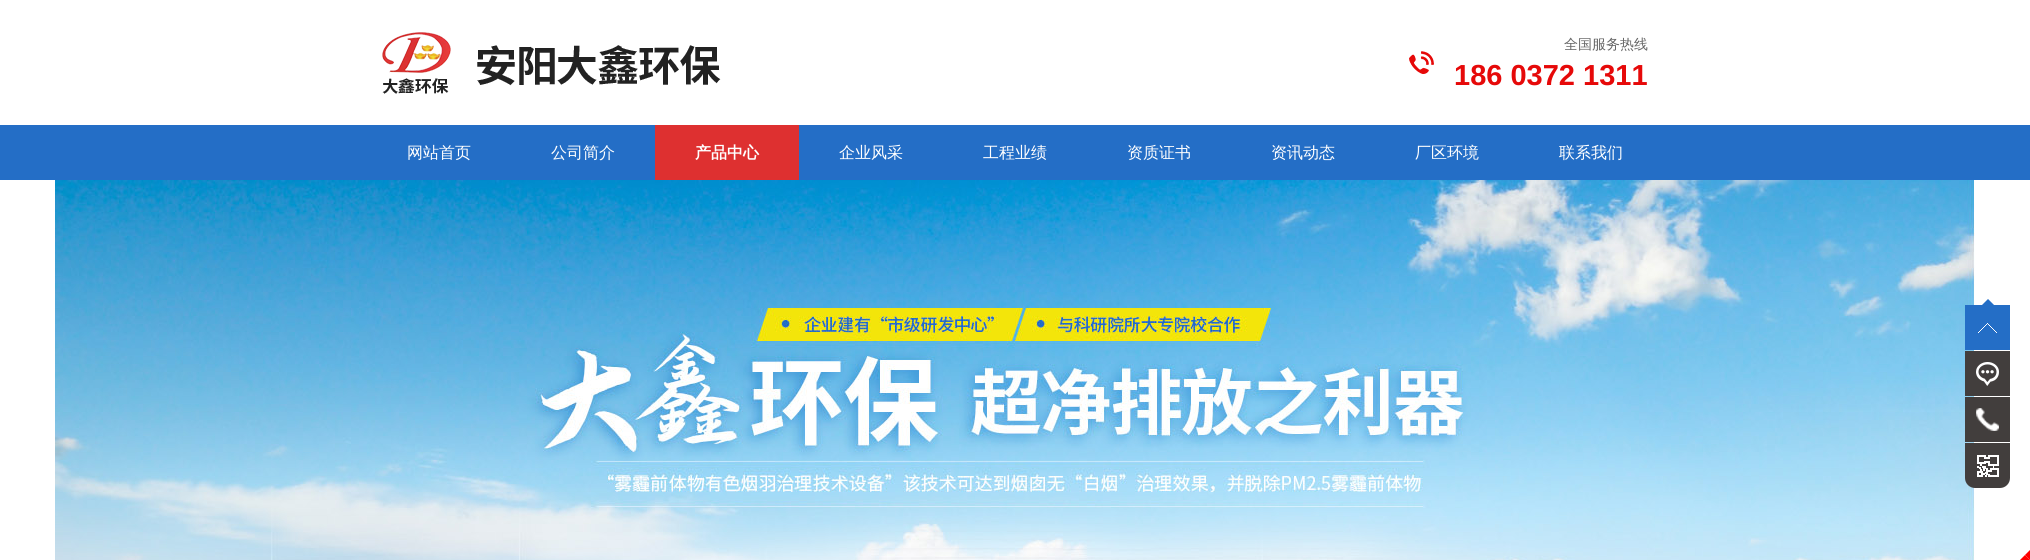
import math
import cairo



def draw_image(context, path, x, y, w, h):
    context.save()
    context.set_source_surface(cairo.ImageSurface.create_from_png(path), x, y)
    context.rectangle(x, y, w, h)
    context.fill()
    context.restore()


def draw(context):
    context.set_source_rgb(1, 1, 1)
    context.paint()
    draw_image(context, "images/1.png", 382, 32, 339, 62)
    draw_image(context, "images/2.png", 1409, 51, 25, 23)
    context.set_source_rgb(36 / 255, 110 / 255, 198 / 255)
    context.rectangle(0, 125, 2030, 55)
    context.fill()
    context.set_source_rgb(222 / 255, 48 / 255, 48 / 255)
    context.rectangle(655, 125, 144, 55)
    context.fill()
    draw_image(context, "images/3.png", 55, 180, 1920, 380)
    context.set_source_rgb(36 / 255, 110 / 255, 198 / 255)
    context.new_path()
    context.move_to(1994, 305)
    context.line_to(1982, 305)
    context.line_to(1988, 299)
    context.close_path()
    context.fill()
    context.rectangle(1965, 305, 45, 45)
    context.fill()
    draw_image(context, "images/4.png", 1978, 323, 19, 10)
    context.set_source_rgb(66 / 255, 62 / 255, 61 / 255)
    context.rectangle(1965, 351, 45, 45)
    context.fill()
    draw_image(context, "images/5.png", 1976, 362, 23, 24)
    context.rectangle(1965, 397, 45, 45)
    context.fill()
    draw_image(context, "images/6.png", 1976, 408, 23, 23)
    context.new_path()
    context.move_to(1965, 443)
    context.line_to(2010, 443)
    context.line_to(2010, 478)
    context.curve_to(2010, 483.5, 2005.5, 488, 2000, 488)
    context.line_to(1975, 488)
    context.curve_to(1969.5, 488, 1965, 483.5, 1965, 478)
    context.close_path()
    context.fill()
    draw_image(context, "images/7.png", 1977, 455, 22, 22)
    context.set_source_rgb(1, 0, 0)
    context.new_path()
    context.move_to(2030, 550)
    context.line_to(2030, 560)
    context.line_to(2025, 555)
    context.close_path()
    context.fill()
    context.new_path()
    context.move_to(2030, 560)
    context.line_to(2020, 560)
    context.line_to(2025, 555)
    context.close_path()
    context.fill()
    context.select_font_face("WenQuanYi Zen Hei Medium")
    context.set_font_size(14)
    context.set_source_rgb(102 / 255, 102 / 255, 102 / 255)
    context.move_to(1564, 49)
    context.show_text("全国服务热线")
    context.select_font_face("Liberation Sans", cairo.FontSlant.NORMAL, cairo.FontWeight.BOLD)
    context.set_font_size(29)
    context.set_source_rgb(230 / 255, 9 / 255, 9 / 255)
    context.move_to(1454, 85)
    context.show_text("186 0372 1311")
    context.select_font_face("WenQuanYi Zen Hei Medium")
    context.set_font_size(16)
    context.set_source_rgb(1, 1, 1)
    context.move_to(407, 158)
    context.show_text("网站首页")
    context.move_to(551, 158)
    context.show_text("公司简介")
    context.select_font_face("WenQuanYi Zen Hei", cairo.FontSlant.NORMAL, cairo.FontWeight.BOLD)
    context.move_to(695, 158)
    context.show_text("产品中心")
    context.select_font_face("WenQuanYi Zen Hei Medium")
    context.move_to(839, 158)
    context.show_text("企业风采")
    context.move_to(983, 158)
    context.show_text("工程业绩")
    context.move_to(1127, 158)
    context.show_text("资质证书")
    context.move_to(1271, 158)
    context.show_text("资讯动态")
    context.move_to(1415, 158)
    context.show_text("厂区环境")
    context.move_to(1559, 158)
    context.show_text("联系我们")


surface = cairo.ImageSurface(cairo.Format.RGB24, 2030, 560)
context = cairo.Context(surface)
options = cairo.FontOptions()
options.set_hint_metrics(cairo.HintMetrics.OFF)
options.set_hint_style(cairo.HintStyle.NONE)
context.set_font_options(options)
context.set_miter_limit(4)
draw(context)
surface.write_to_png("out.png")
